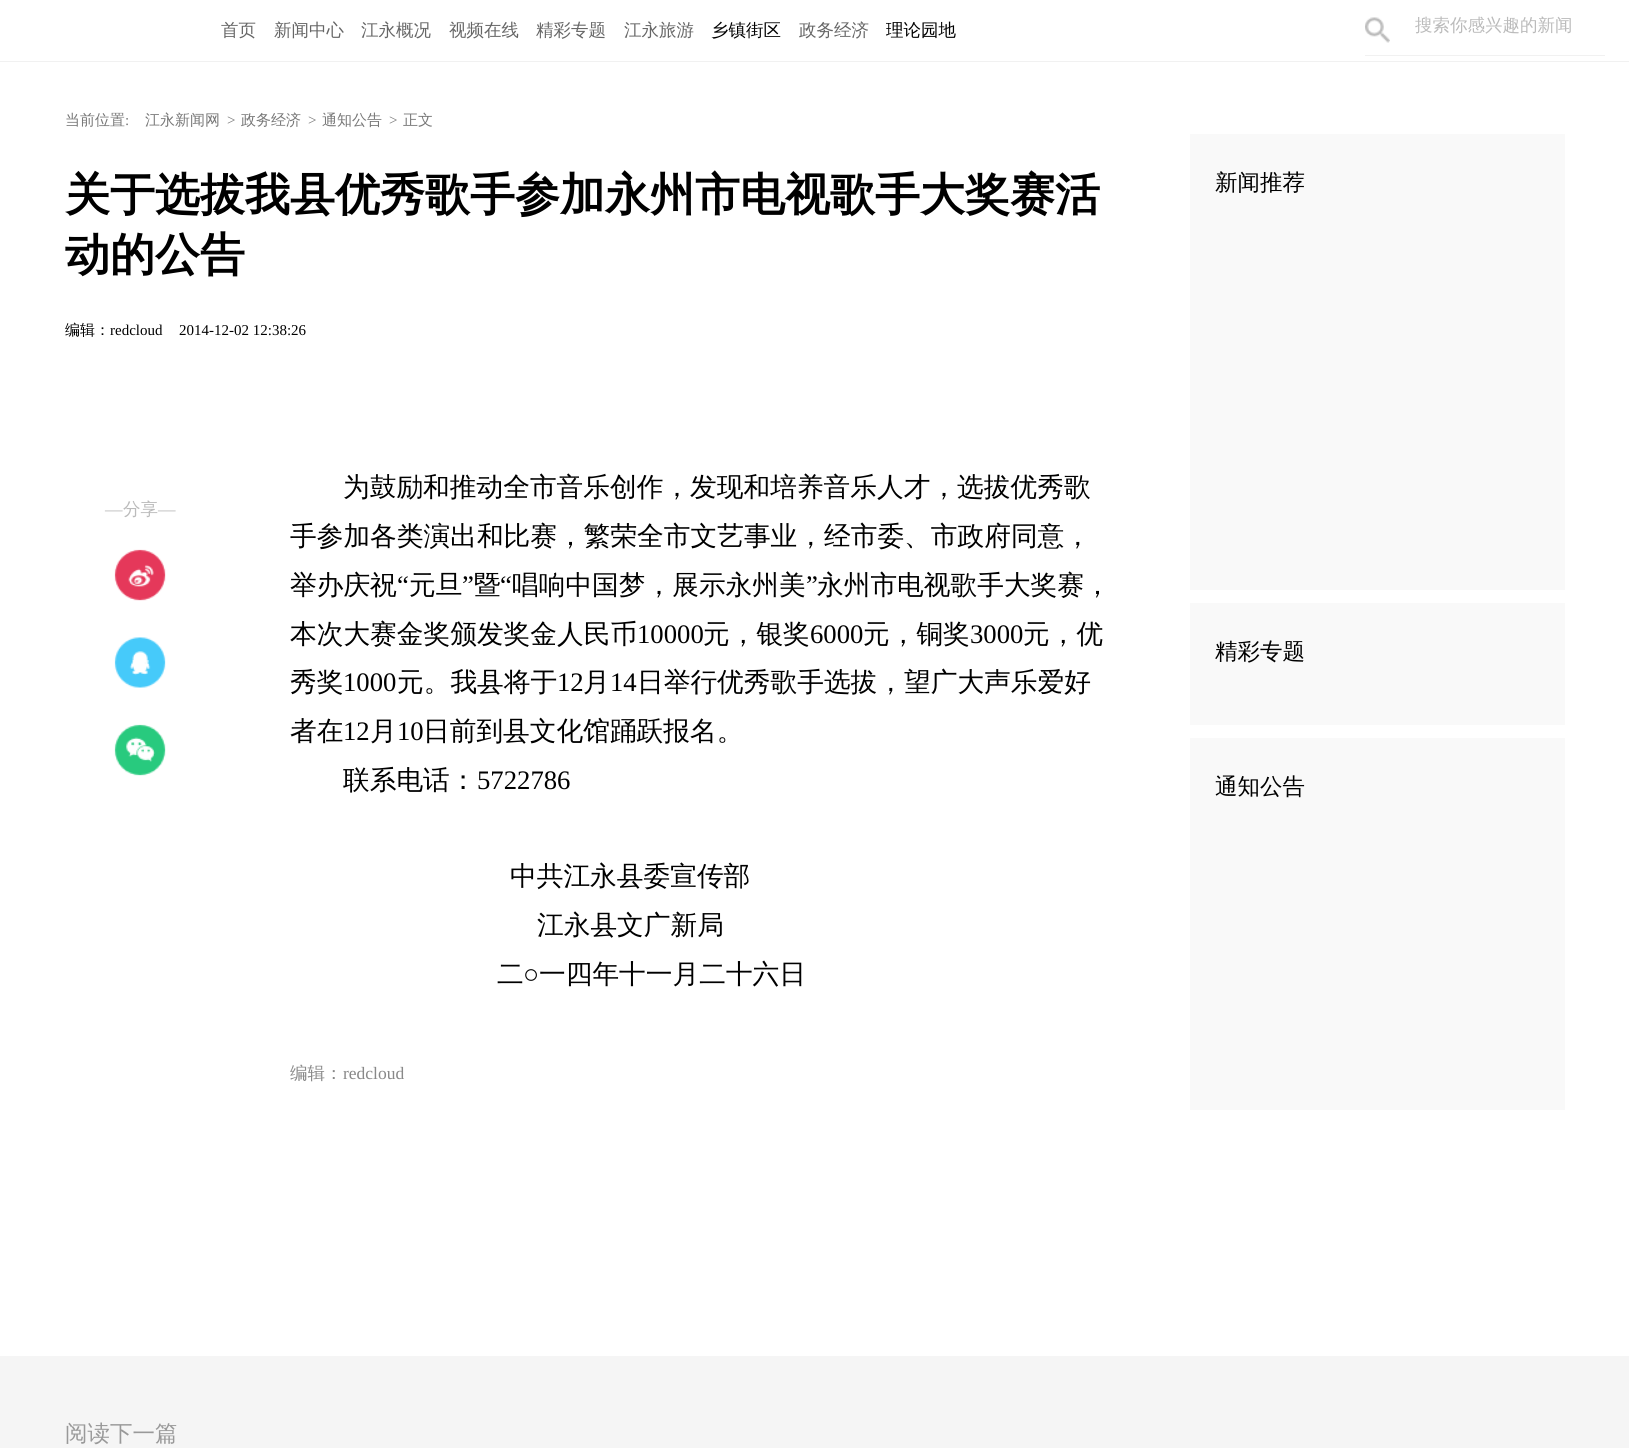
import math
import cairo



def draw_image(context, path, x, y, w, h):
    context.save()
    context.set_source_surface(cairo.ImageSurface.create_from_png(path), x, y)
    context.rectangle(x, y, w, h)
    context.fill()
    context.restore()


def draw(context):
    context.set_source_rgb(1, 1, 1)
    context.paint()
    context.set_source_rgb(241 / 255, 241 / 255, 241 / 255)
    context.rectangle(0, 61, 1629, 1)
    context.fill()
    context.rectangle(1365, 55, 240, 1)
    context.fill()
    draw_image(context, "images/1.png", 1365, 17, 25, 26)
    draw_image(context, "images/2.png", 114, 549, 52, 52)
    draw_image(context, "images/3.png", 114, 637, 52, 51)
    draw_image(context, "images/4.png", 114, 724, 52, 52)
    context.set_source_rgb(249 / 255, 249 / 255, 249 / 255)
    context.rectangle(1190, 134, 375, 456)
    context.fill()
    context.rectangle(1190, 603, 375, 122)
    context.fill()
    context.rectangle(1190, 738, 375, 372)
    context.fill()
    context.set_source_rgb(245 / 255, 245 / 255, 245 / 255)
    context.rectangle(0, 1356, 1629, 92)
    context.fill()
    context.select_font_face("WenQuanYi Zen Hei Medium")
    context.set_font_size(17.5)
    context.set_source_rgb(102 / 255, 102 / 255, 102 / 255)
    context.move_to(221, 36)
    context.show_text("首页")
    context.move_to(274, 36)
    context.show_text("新闻中心")
    context.move_to(361, 36)
    context.show_text("江永概况")
    context.move_to(449, 36)
    context.show_text("视频在线")
    context.move_to(536, 36)
    context.show_text("精彩专题")
    context.move_to(624, 36)
    context.show_text("江永旅游")
    context.set_source_rgb(0, 0, 0)
    context.move_to(711, 36)
    context.show_text("乡镇街区")
    context.set_source_rgb(102 / 255, 102 / 255, 102 / 255)
    context.move_to(799, 36)
    context.show_text("政务经济")
    context.set_source_rgb(0, 0, 0)
    context.move_to(886, 36)
    context.show_text("理论园地")
    context.set_source_rgb(187 / 255, 187 / 255, 187 / 255)
    context.move_to(1415, 31)
    context.show_text("搜索你感兴趣的新闻")
    context.set_font_size(15)
    context.set_source_rgb(119 / 255, 119 / 255, 119 / 255)
    context.move_to(65, 125)
    context.show_text("当前位置")
    context.select_font_face("Liberation Serif")
    context.move_to(125, 125)
    context.show_text(":")
    context.select_font_face("WenQuanYi Zen Hei Medium")
    context.move_to(145, 125)
    context.show_text("江永新闻网")
    context.select_font_face("Liberation Serif")
    context.move_to(227, 125)
    context.show_text(">")
    context.select_font_face("WenQuanYi Zen Hei Medium")
    context.move_to(241, 125)
    context.show_text("政务经济")
    context.select_font_face("Liberation Serif")
    context.move_to(308, 125)
    context.show_text(">")
    context.select_font_face("WenQuanYi Zen Hei Medium")
    context.move_to(322, 125)
    context.show_text("通知公告")
    context.select_font_face("Liberation Serif")
    context.move_to(389, 125)
    context.show_text(">")
    context.select_font_face("WenQuanYi Zen Hei Medium")
    context.move_to(403, 125)
    context.show_text("正文")
    context.select_font_face("WenQuanYi Zen Hei", cairo.FontSlant.NORMAL, cairo.FontWeight.BOLD)
    context.set_font_size(45)
    context.set_source_rgb(0, 0, 0)
    context.move_to(65, 210)
    context.show_text("关于选拔我县优秀歌手参加永州市电视歌手大奖赛活")
    context.move_to(65, 270)
    context.show_text("动的公告")
    context.select_font_face("WenQuanYi Zen Hei Medium")
    context.set_font_size(15)
    context.move_to(65, 335)
    context.show_text("编辑：")
    context.select_font_face("Liberation Serif")
    context.move_to(110, 335)
    context.show_text("redcloud")
    context.move_to(179, 335)
    context.show_text("2014-12-02 12:38:26")
    context.set_font_size(17.5)
    context.set_source_rgb(187 / 255, 187 / 255, 187 / 255)
    context.move_to(105, 515)
    context.show_text("—")
    context.select_font_face("WenQuanYi Zen Hei Medium")
    context.move_to(123, 515)
    context.show_text("分享")
    context.select_font_face("Liberation Serif")
    context.move_to(158, 515)
    context.show_text("—")
    context.select_font_face("WenQuanYi Zen Hei Medium")
    context.set_font_size(26.7)
    context.set_source_rgb(0, 0, 0)
    context.move_to(343, 496)
    context.show_text("为鼓励和推动全市音乐创作，发现和培养音乐人才，选拔优秀歌")
    context.move_to(290, 545)
    context.show_text("手参加各类演出和比赛，繁荣全市文艺事业，经市委、市政府同意，")
    context.move_to(290, 594)
    context.show_text("举办庆祝")
    context.select_font_face("Liberation Serif")
    context.move_to(397, 594)
    context.show_text("“")
    context.select_font_face("WenQuanYi Zen Hei Medium")
    context.move_to(409, 594)
    context.show_text("元旦")
    context.select_font_face("Liberation Serif")
    context.move_to(462, 594)
    context.show_text("”")
    context.select_font_face("WenQuanYi Zen Hei Medium")
    context.move_to(474, 594)
    context.show_text("暨")
    context.select_font_face("Liberation Serif")
    context.move_to(500, 594)
    context.show_text("“")
    context.select_font_face("WenQuanYi Zen Hei Medium")
    context.move_to(512, 594)
    context.show_text("唱响中国梦，展示永州美")
    context.select_font_face("Liberation Serif")
    context.move_to(806, 594)
    context.show_text("”")
    context.select_font_face("WenQuanYi Zen Hei Medium")
    context.move_to(817, 594)
    context.show_text("永州市电视歌手大奖赛，")
    context.move_to(290, 643)
    context.show_text("本次大赛金奖颁发奖金人民币")
    context.select_font_face("Liberation Serif")
    context.move_to(637, 643)
    context.show_text("10000")
    context.select_font_face("WenQuanYi Zen Hei Medium")
    context.move_to(703, 643)
    context.show_text("元，银奖")
    context.select_font_face("Liberation Serif")
    context.move_to(810, 643)
    context.show_text("6000")
    context.select_font_face("WenQuanYi Zen Hei Medium")
    context.move_to(863, 643)
    context.show_text("元，铜奖")
    context.select_font_face("Liberation Serif")
    context.move_to(970, 643)
    context.show_text("3000")
    context.select_font_face("WenQuanYi Zen Hei Medium")
    context.move_to(1023, 643)
    context.show_text("元，优")
    context.move_to(290, 691)
    context.show_text("秀奖")
    context.select_font_face("Liberation Serif")
    context.move_to(343, 691)
    context.show_text("1000")
    context.select_font_face("WenQuanYi Zen Hei Medium")
    context.move_to(397, 691)
    context.show_text("元。我县将于")
    context.select_font_face("Liberation Serif")
    context.move_to(557, 691)
    context.show_text("12")
    context.select_font_face("WenQuanYi Zen Hei Medium")
    context.move_to(583, 691)
    context.show_text("月")
    context.select_font_face("Liberation Serif")
    context.move_to(610, 691)
    context.show_text("14")
    context.select_font_face("WenQuanYi Zen Hei Medium")
    context.move_to(637, 691)
    context.show_text("日举行优秀歌手选拔，望广大声乐爱好")
    context.move_to(290, 740)
    context.show_text("者在")
    context.select_font_face("Liberation Serif")
    context.move_to(343, 740)
    context.show_text("12")
    context.select_font_face("WenQuanYi Zen Hei Medium")
    context.move_to(370, 740)
    context.show_text("月")
    context.select_font_face("Liberation Serif")
    context.move_to(397, 740)
    context.show_text("10")
    context.select_font_face("WenQuanYi Zen Hei Medium")
    context.move_to(423, 740)
    context.show_text("日前到县文化馆踊跃报名。")
    context.move_to(343, 789)
    context.show_text("联系电话：")
    context.select_font_face("Liberation Serif")
    context.move_to(477, 789)
    context.show_text("5722786")
    context.select_font_face("WenQuanYi Zen Hei Medium")
    context.move_to(510, 885)
    context.show_text("中共江永县委宣传部")
    context.move_to(537, 934)
    context.show_text("江永县文广新局")
    context.move_to(497, 983)
    context.show_text("二")
    context.select_font_face("Liberation Serif")
    context.move_to(523, 983)
    context.show_text("○")
    context.select_font_face("WenQuanYi Zen Hei Medium")
    context.move_to(539, 983)
    context.show_text("一四年十一月二十六日")
    context.set_font_size(17.5)
    context.set_source_rgb(136 / 255, 136 / 255, 136 / 255)
    context.move_to(290, 1079)
    context.show_text("编辑：")
    context.select_font_face("Liberation Serif")
    context.move_to(343, 1079)
    context.show_text("redcloud")
    context.select_font_face("WenQuanYi Zen Hei Medium")
    context.set_font_size(22.5)
    context.set_source_rgb(0, 0, 0)
    context.move_to(1215, 190)
    context.show_text("新闻推荐")
    context.move_to(1215, 659)
    context.show_text("精彩专题")
    context.move_to(1215, 794)
    context.show_text("通知公告")
    context.set_source_rgb(153 / 255, 153 / 255, 153 / 255)
    context.move_to(65, 1441)
    context.show_text("阅读下一篇")


surface = cairo.ImageSurface(cairo.Format.RGB24, 1629, 1448)
context = cairo.Context(surface)
options = cairo.FontOptions()
options.set_hint_metrics(cairo.HintMetrics.OFF)
options.set_hint_style(cairo.HintStyle.NONE)
context.set_font_options(options)
context.set_miter_limit(4)
draw(context)
surface.write_to_png("out.png")
